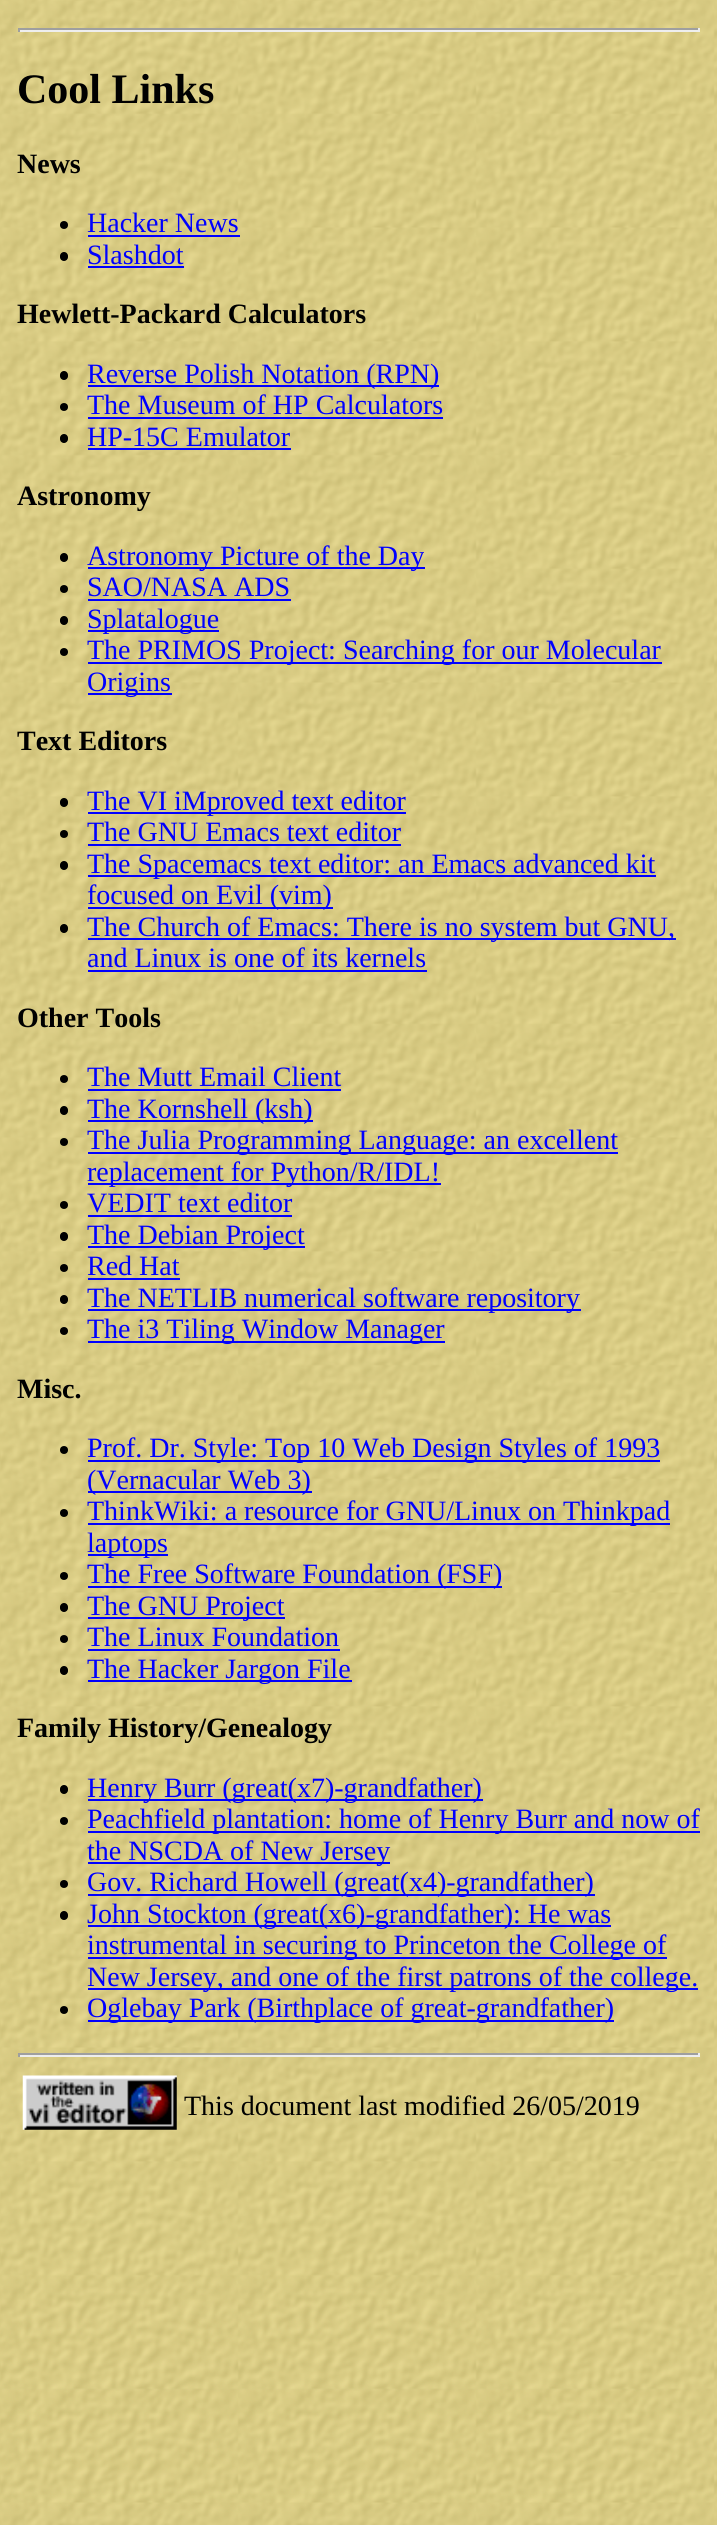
import math
import cairo



def rounded_rect(context, x, y, w, h, r):
    context.new_sub_path()
    for i, (u, v) in enumerate([(x + w - r, y + h - r), (x + r, y + h - r), (x + r, y + r), (x + w - r, y + r)]):
        context.arc(u, v, r, i * math.pi / 2, (i + 1) * math.pi / 2)
    context.close_path()


def draw_image(context, path, x, y, w, h):
    context.save()
    context.set_source_surface(cairo.ImageSurface.create_from_png(path), x, y)
    context.rectangle(x, y, w, h)
    context.fill()
    context.restore()


def draw(context):
    context.set_source_rgb(1, 1, 1)
    context.paint()
    draw_image(context, "images/1.png", 0, 0, 717, 2525)
    context.set_source_rgb(159 / 255, 159 / 255, 159 / 255)
    context.rectangle(18, 28, 682, 2)
    context.fill()
    context.set_source_rgb(238 / 255, 238 / 255, 238 / 255)
    context.rectangle(698, 28, 2, 4)
    context.fill()
    context.rectangle(18, 30, 682, 2)
    context.fill()
    context.set_source_rgb(159 / 255, 159 / 255, 159 / 255)
    context.rectangle(18, 28, 2, 4)
    context.fill()
    context.set_source_rgb(0, 0, 0)
    context.arc(64, 225, 4, 0, 2 * math.pi)
    context.fill()
    context.set_source_rgb(0, 0, 1)
    context.rectangle(88, 235, 152, 2)
    context.fill()
    context.set_source_rgb(0, 0, 0)
    rounded_rect(context, 60, 252, 8, 9, 4)
    context.fill()
    context.set_source_rgb(0, 0, 1)
    context.rectangle(88, 266, 96, 2)
    context.fill()
    context.set_source_rgb(0, 0, 0)
    rounded_rect(context, 60, 371, 8, 9, 4)
    context.fill()
    context.set_source_rgb(0, 0, 1)
    context.rectangle(88, 385, 351, 2)
    context.fill()
    context.set_source_rgb(0, 0, 0)
    context.arc(64, 407, 4, 0, 2 * math.pi)
    context.fill()
    context.set_source_rgb(0, 0, 1)
    context.rectangle(88, 417, 355, 2)
    context.fill()
    context.set_source_rgb(0, 0, 0)
    rounded_rect(context, 60, 434, 8, 9, 4)
    context.fill()
    context.set_source_rgb(0, 0, 1)
    context.rectangle(88, 448, 203, 2)
    context.fill()
    context.set_source_rgb(0, 0, 0)
    rounded_rect(context, 60, 553, 8, 9, 4)
    context.fill()
    context.set_source_rgb(0, 0, 1)
    context.rectangle(88, 567, 337, 2)
    context.fill()
    context.set_source_rgb(0, 0, 0)
    context.arc(64, 589, 4, 0, 2 * math.pi)
    context.fill()
    context.set_source_rgb(0, 0, 1)
    context.rectangle(88, 599, 203, 2)
    context.fill()
    context.set_source_rgb(0, 0, 0)
    rounded_rect(context, 60, 616, 8, 9, 4)
    context.fill()
    context.set_source_rgb(0, 0, 1)
    context.rectangle(88, 630, 131, 2)
    context.fill()
    context.set_source_rgb(0, 0, 0)
    context.arc(64, 652, 4, 0, 2 * math.pi)
    context.fill()
    context.set_source_rgb(0, 0, 1)
    context.rectangle(88, 662, 574, 2)
    context.fill()
    context.rectangle(88, 693, 84, 2)
    context.fill()
    context.set_source_rgb(0, 0, 0)
    rounded_rect(context, 60, 798, 8, 9, 4)
    context.fill()
    context.set_source_rgb(0, 0, 1)
    context.rectangle(88, 812, 318, 2)
    context.fill()
    context.set_source_rgb(0, 0, 0)
    context.arc(64, 834, 4, 0, 2 * math.pi)
    context.fill()
    context.set_source_rgb(0, 0, 1)
    context.rectangle(88, 844, 313, 2)
    context.fill()
    context.set_source_rgb(0, 0, 0)
    rounded_rect(context, 60, 861, 8, 9, 4)
    context.fill()
    context.set_source_rgb(0, 0, 1)
    context.rectangle(88, 875, 568, 2)
    context.fill()
    context.rectangle(88, 907, 245, 2)
    context.fill()
    context.set_source_rgb(0, 0, 0)
    rounded_rect(context, 60, 924, 8, 9, 4)
    context.fill()
    context.set_source_rgb(0, 0, 1)
    context.rectangle(88, 938, 588, 2)
    context.fill()
    context.rectangle(88, 970, 339, 2)
    context.fill()
    context.set_source_rgb(0, 0, 0)
    context.arc(64, 1079, 4, 0, 2 * math.pi)
    context.fill()
    context.set_source_rgb(0, 0, 1)
    context.rectangle(88, 1089, 253, 2)
    context.fill()
    context.set_source_rgb(0, 0, 0)
    rounded_rect(context, 60, 1106, 8, 9, 4)
    context.fill()
    context.set_source_rgb(0, 0, 1)
    context.rectangle(88, 1120, 225, 2)
    context.fill()
    context.set_source_rgb(0, 0, 0)
    context.arc(64, 1142, 4, 0, 2 * math.pi)
    context.fill()
    context.set_source_rgb(0, 0, 1)
    context.rectangle(88, 1152, 530, 2)
    context.fill()
    context.rectangle(88, 1183, 353, 2)
    context.fill()
    context.set_source_rgb(0, 0, 0)
    context.arc(64, 1205, 4, 0, 2 * math.pi)
    context.fill()
    context.set_source_rgb(0, 0, 1)
    context.rectangle(88, 1215, 204, 2)
    context.fill()
    context.set_source_rgb(0, 0, 0)
    rounded_rect(context, 60, 1232, 8, 9, 4)
    context.fill()
    context.set_source_rgb(0, 0, 1)
    context.rectangle(88, 1246, 217, 2)
    context.fill()
    context.set_source_rgb(0, 0, 0)
    context.arc(64, 1268, 4, 0, 2 * math.pi)
    context.fill()
    context.set_source_rgb(0, 0, 1)
    context.rectangle(88, 1278, 92, 2)
    context.fill()
    context.set_source_rgb(0, 0, 0)
    rounded_rect(context, 60, 1295, 8, 9, 4)
    context.fill()
    context.set_source_rgb(0, 0, 1)
    context.rectangle(88, 1309, 493, 2)
    context.fill()
    context.set_source_rgb(0, 0, 0)
    context.arc(64, 1331, 4, 0, 2 * math.pi)
    context.fill()
    context.set_source_rgb(0, 0, 1)
    context.rectangle(88, 1341, 357, 2)
    context.fill()
    context.set_source_rgb(0, 0, 0)
    context.arc(64, 1450, 4, 0, 2 * math.pi)
    context.fill()
    context.set_source_rgb(0, 0, 1)
    context.rectangle(88, 1460, 572, 2)
    context.fill()
    context.rectangle(88, 1491, 224, 2)
    context.fill()
    context.set_source_rgb(0, 0, 0)
    context.arc(64, 1513, 4, 0, 2 * math.pi)
    context.fill()
    context.set_source_rgb(0, 0, 1)
    context.rectangle(88, 1523, 582, 2)
    context.fill()
    context.rectangle(88, 1554, 80, 2)
    context.fill()
    context.set_source_rgb(0, 0, 0)
    context.arc(64, 1576, 4, 0, 2 * math.pi)
    context.fill()
    context.set_source_rgb(0, 0, 1)
    context.rectangle(88, 1586, 414, 2)
    context.fill()
    context.set_source_rgb(0, 0, 0)
    rounded_rect(context, 60, 1603, 8, 9, 4)
    context.fill()
    context.set_source_rgb(0, 0, 1)
    context.rectangle(88, 1617, 197, 2)
    context.fill()
    context.set_source_rgb(0, 0, 0)
    context.arc(64, 1639, 4, 0, 2 * math.pi)
    context.fill()
    context.set_source_rgb(0, 0, 1)
    context.rectangle(88, 1649, 252, 2)
    context.fill()
    context.set_source_rgb(0, 0, 0)
    rounded_rect(context, 60, 1666, 8, 9, 4)
    context.fill()
    context.set_source_rgb(0, 0, 1)
    context.rectangle(88, 1680, 264, 2)
    context.fill()
    context.set_source_rgb(0, 0, 0)
    rounded_rect(context, 60, 1785, 8, 9, 4)
    context.fill()
    context.set_source_rgb(0, 0, 1)
    context.rectangle(88, 1799, 395, 2)
    context.fill()
    context.set_source_rgb(0, 0, 0)
    context.arc(64, 1821, 4, 0, 2 * math.pi)
    context.fill()
    context.set_source_rgb(0, 0, 1)
    context.rectangle(88, 1831, 612, 2)
    context.fill()
    context.rectangle(88, 1862, 302, 2)
    context.fill()
    context.set_source_rgb(0, 0, 0)
    context.arc(64, 1884, 4, 0, 2 * math.pi)
    context.fill()
    context.set_source_rgb(0, 0, 1)
    context.rectangle(88, 1894, 507, 2)
    context.fill()
    context.set_source_rgb(0, 0, 0)
    rounded_rect(context, 60, 1911, 8, 9, 4)
    context.fill()
    context.set_source_rgb(0, 0, 1)
    context.rectangle(88, 1925, 523, 2)
    context.fill()
    context.rectangle(88, 1957, 579, 2)
    context.fill()
    context.rectangle(88, 1988, 610, 2)
    context.fill()
    context.set_source_rgb(0, 0, 0)
    context.arc(64, 2010, 4, 0, 2 * math.pi)
    context.fill()
    context.set_source_rgb(0, 0, 1)
    context.rectangle(88, 2020, 526, 2)
    context.fill()
    context.set_source_rgb(159 / 255, 159 / 255, 159 / 255)
    context.rectangle(18, 2053, 682, 2)
    context.fill()
    context.set_source_rgb(238 / 255, 238 / 255, 238 / 255)
    context.rectangle(698, 2053, 2, 4)
    context.fill()
    context.rectangle(18, 2055, 682, 2)
    context.fill()
    context.set_source_rgb(159 / 255, 159 / 255, 159 / 255)
    context.rectangle(18, 2053, 2, 4)
    context.fill()
    draw_image(context, "images/2.png", 22, 2075, 155, 55)
    context.select_font_face("Liberation Serif", cairo.FontSlant.NORMAL, cairo.FontWeight.BOLD)
    context.set_font_size(42)
    context.set_source_rgb(0, 0, 0)
    context.move_to(17, 103)
    context.show_text("Cool Links")
    context.set_font_size(28)
    context.move_to(17, 173)
    context.show_text("News")
    context.select_font_face("Liberation Serif")
    context.set_source_rgb(0, 0, 1)
    context.move_to(87, 232)
    context.show_text("Hacker News")
    context.move_to(87, 264)
    context.show_text("Slashdot")
    context.select_font_face("Liberation Serif", cairo.FontSlant.NORMAL, cairo.FontWeight.BOLD)
    context.set_source_rgb(0, 0, 0)
    context.move_to(17, 323)
    context.show_text("Hewlett-Packard Calculators")
    context.select_font_face("Liberation Serif")
    context.set_source_rgb(0, 0, 1)
    context.move_to(87, 383)
    context.show_text("Reverse Polish Notation (RPN)")
    context.move_to(87, 414)
    context.show_text("The Museum of HP Calculators")
    context.move_to(87, 446)
    context.show_text("HP-15C Emulator")
    context.select_font_face("Liberation Serif", cairo.FontSlant.NORMAL, cairo.FontWeight.BOLD)
    context.set_source_rgb(0, 0, 0)
    context.move_to(17, 505)
    context.show_text("Astronomy")
    context.select_font_face("Liberation Serif")
    context.set_source_rgb(0, 0, 1)
    context.move_to(87, 565)
    context.show_text("Astronomy Picture of the Day")
    context.move_to(87, 596)
    context.show_text("SAO/NASA ADS")
    context.move_to(87, 628)
    context.show_text("Splatalogue")
    context.move_to(87, 659)
    context.show_text("The PRIMOS Project: Searching for our Molecular")
    context.move_to(87, 691)
    context.show_text("Origins")
    context.select_font_face("Liberation Serif", cairo.FontSlant.NORMAL, cairo.FontWeight.BOLD)
    context.set_source_rgb(0, 0, 0)
    context.move_to(17, 750)
    context.show_text("Text Editors")
    context.select_font_face("Liberation Serif")
    context.set_source_rgb(0, 0, 1)
    context.move_to(87, 810)
    context.show_text("The VI iMproved text editor")
    context.move_to(87, 841)
    context.show_text("The GNU Emacs text editor")
    context.move_to(87, 873)
    context.show_text("The Spacemacs text editor: an Emacs advanced kit")
    context.move_to(87, 904)
    context.show_text("focused on Evil (vim)")
    context.move_to(87, 936)
    context.show_text("The Church of Emacs: There is no system but GNU,")
    context.move_to(87, 967)
    context.show_text("and Linux is one of its kernels")
    context.select_font_face("Liberation Serif", cairo.FontSlant.NORMAL, cairo.FontWeight.BOLD)
    context.set_source_rgb(0, 0, 0)
    context.move_to(17, 1027)
    context.show_text("Other Tools")
    context.select_font_face("Liberation Serif")
    context.set_source_rgb(0, 0, 1)
    context.move_to(87, 1086)
    context.show_text("The Mutt Email Client")
    context.move_to(87, 1118)
    context.show_text("The Kornshell (ksh)")
    context.move_to(87, 1149)
    context.show_text("The Julia Programming Language: an excellent")
    context.move_to(87, 1181)
    context.show_text("replacement for Python/R/IDL!")
    context.move_to(87, 1212)
    context.show_text("VEDIT text editor")
    context.move_to(87, 1244)
    context.show_text("The Debian Project")
    context.move_to(87, 1275)
    context.show_text("Red Hat")
    context.move_to(87, 1307)
    context.show_text("The NETLIB numerical software repository")
    context.move_to(87, 1338)
    context.show_text("The i3 Tiling Window Manager")
    context.select_font_face("Liberation Serif", cairo.FontSlant.NORMAL, cairo.FontWeight.BOLD)
    context.set_source_rgb(0, 0, 0)
    context.move_to(17, 1398)
    context.show_text("Misc.")
    context.select_font_face("Liberation Serif")
    context.set_source_rgb(0, 0, 1)
    context.move_to(87, 1457)
    context.show_text("Prof. Dr. Style: Top 10 Web Design Styles of 1993")
    context.move_to(87, 1489)
    context.show_text("(Vernacular Web 3)")
    context.move_to(87, 1520)
    context.show_text("ThinkWiki: a resource for GNU/Linux on Thinkpad")
    context.move_to(87, 1552)
    context.show_text("laptops")
    context.move_to(87, 1583)
    context.show_text("The Free Software Foundation (FSF)")
    context.move_to(87, 1615)
    context.show_text("The GNU Project")
    context.move_to(87, 1646)
    context.show_text("The Linux Foundation")
    context.move_to(87, 1678)
    context.show_text("The Hacker Jargon File")
    context.select_font_face("Liberation Serif", cairo.FontSlant.NORMAL, cairo.FontWeight.BOLD)
    context.set_source_rgb(0, 0, 0)
    context.move_to(17, 1737)
    context.show_text("Family History/Genealogy")
    context.select_font_face("Liberation Serif")
    context.set_source_rgb(0, 0, 1)
    context.move_to(87, 1797)
    context.show_text("Henry Burr (great(x7)-grandfather)")
    context.move_to(87, 1828)
    context.show_text("Peachfield plantation: home of Henry Burr and now of")
    context.move_to(87, 1860)
    context.show_text("the NSCDA of New Jersey")
    context.move_to(87, 1891)
    context.show_text("Gov. Richard Howell (great(x4)-grandfather)")
    context.move_to(87, 1923)
    context.show_text("John Stockton (great(x6)-grandfather): He was")
    context.move_to(87, 1954)
    context.show_text("instrumental in securing to Princeton the College of")
    context.move_to(87, 1986)
    context.show_text("New Jersey, and one of the first patrons of the college.")
    context.move_to(87, 2017)
    context.show_text("Oglebay Park (Birthplace of great-grandfather)")
    context.set_source_rgb(0, 0, 0)
    context.move_to(184, 2115)
    context.show_text("This document last modified 26/05/2019")


surface = cairo.ImageSurface(cairo.Format.RGB24, 717, 2525)
context = cairo.Context(surface)
options = cairo.FontOptions()
options.set_hint_metrics(cairo.HintMetrics.OFF)
options.set_hint_style(cairo.HintStyle.NONE)
context.set_font_options(options)
context.set_miter_limit(4)
draw(context)
surface.write_to_png("out.png")
